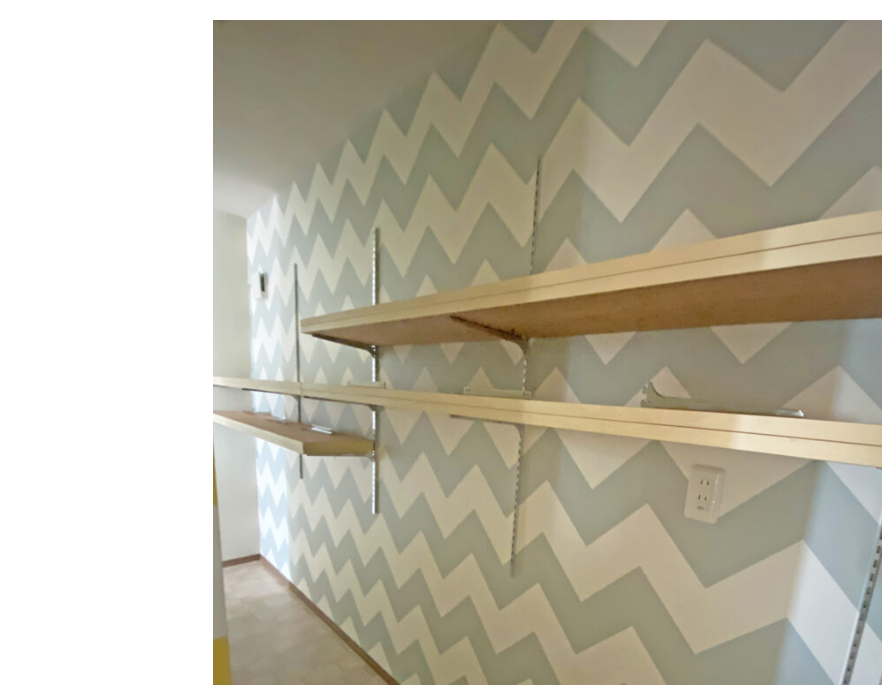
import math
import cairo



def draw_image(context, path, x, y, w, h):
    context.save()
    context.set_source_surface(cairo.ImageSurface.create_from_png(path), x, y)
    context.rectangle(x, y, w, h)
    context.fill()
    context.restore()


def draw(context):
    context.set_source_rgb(1, 1, 1)
    context.paint()
    draw_image(context, "images/1.png", 213, 20, 669, 665)


surface = cairo.ImageSurface(cairo.Format.RGB24, 882, 685)
context = cairo.Context(surface)
options = cairo.FontOptions()
options.set_hint_metrics(cairo.HintMetrics.OFF)
options.set_hint_style(cairo.HintStyle.NONE)
context.set_font_options(options)
context.set_miter_limit(4)
draw(context)
surface.write_to_png("out.png")
